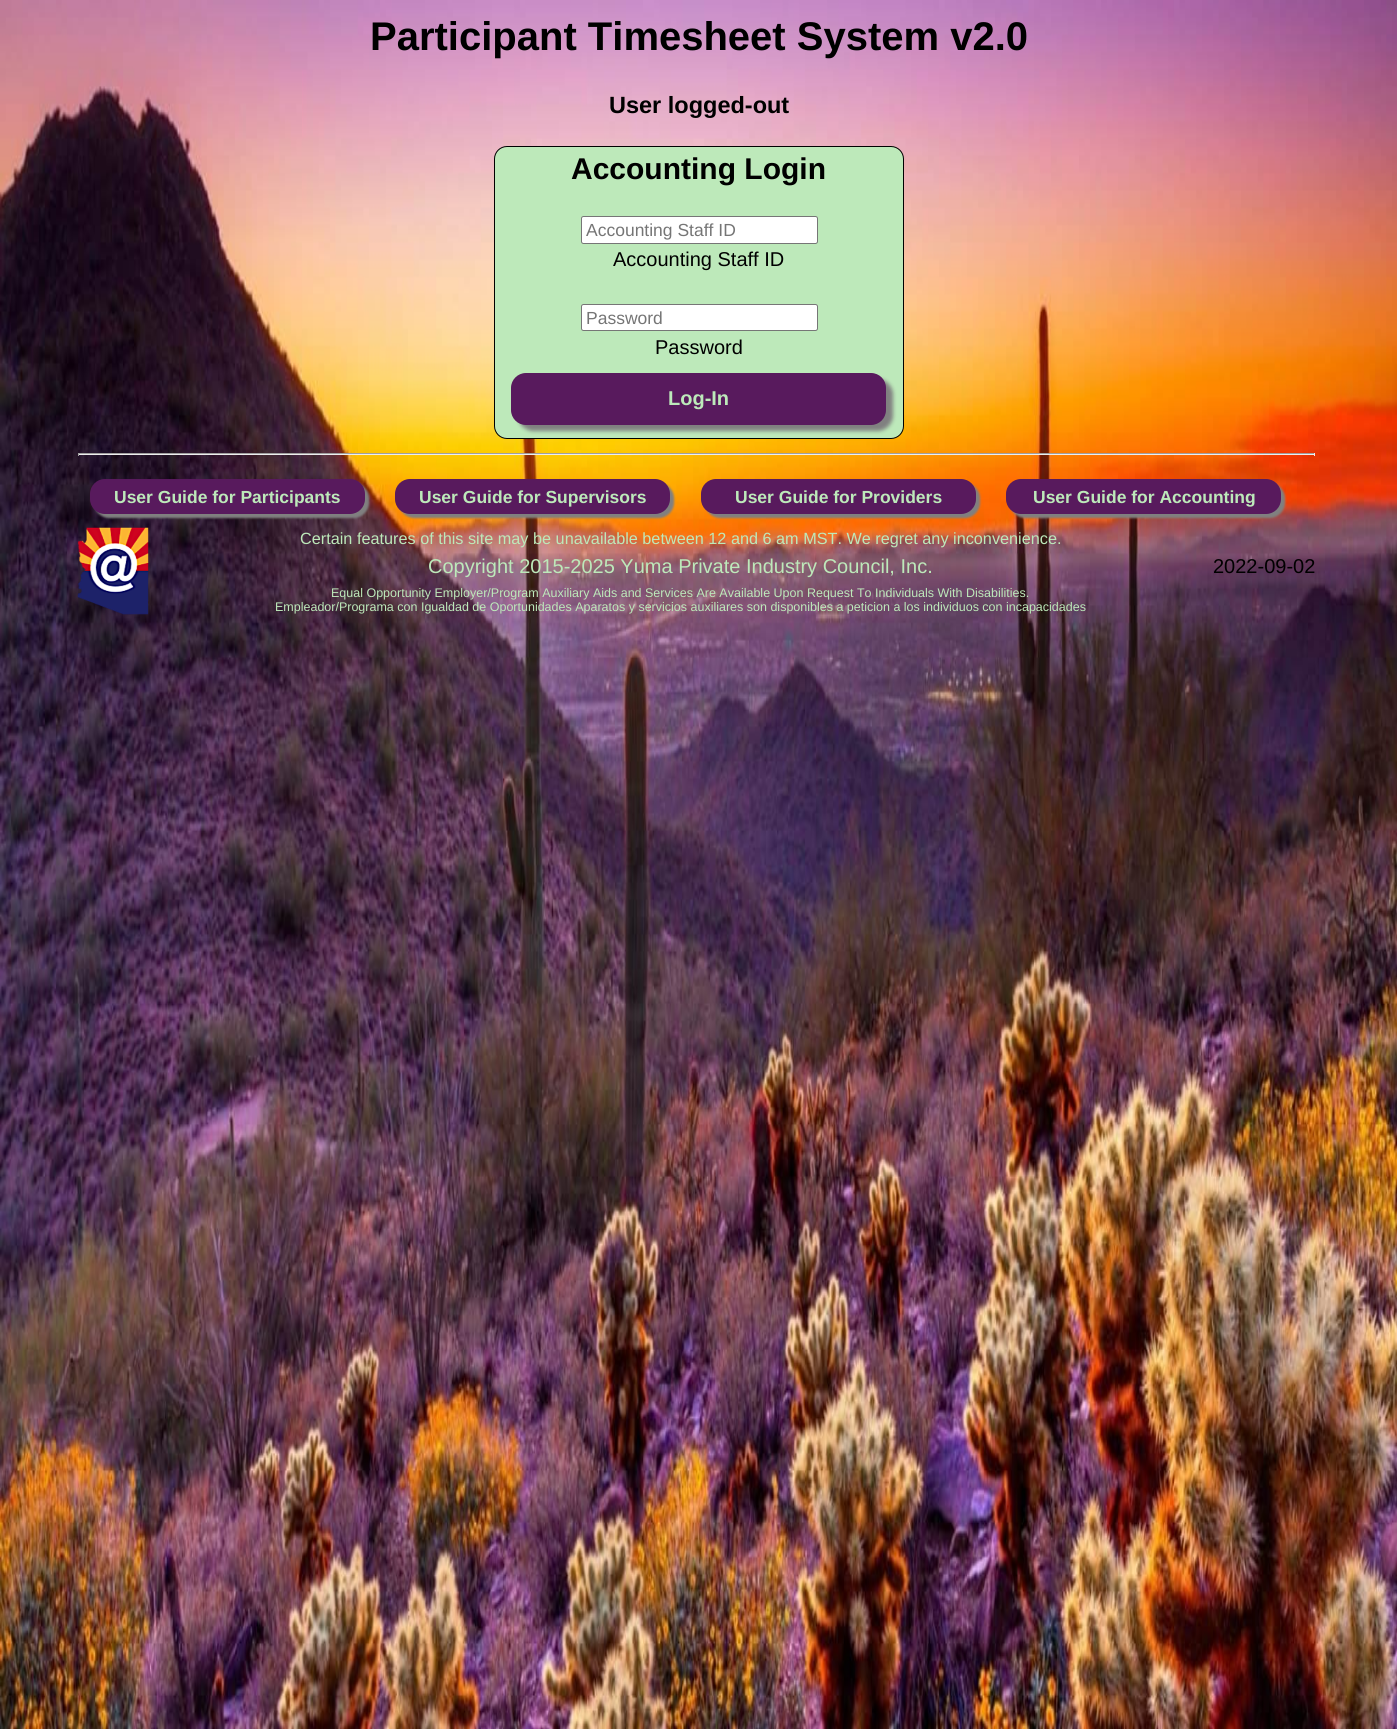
import math
import cairo



def rounded_rect(context, x, y, w, h, r):
    context.new_sub_path()
    for i, (u, v) in enumerate([(x + w - r, y + h - r), (x + r, y + h - r), (x + r, y + r), (x + w - r, y + r)]):
        context.arc(u, v, r, i * math.pi / 2, (i + 1) * math.pi / 2)
    context.close_path()


def draw_shadow(context, x, y, w, h, r, blur, alpha):
    context.push_group_with_content(cairo.Content.ALPHA)
    context.set_operator(cairo.Operator.SOURCE)
    for i in range(15, -16, -2):
        e = blur * i / 6
        if min(w, h) + 2 * e > 0:
            context.set_source_rgba(0, 0, 0, alpha * math.erfc((i - 1) / 8.5) / 2)
            rounded_rect(context, x - e, y - e, w + 2 * e, h + 2 * e, max(0, min(r + e + blur * .6, min(w, h) / 2 + e)))
            context.fill()
    context.mask(context.pop_group())


def draw_image(context, path, x, y, w, h):
    context.save()
    context.set_source_surface(cairo.ImageSurface.create_from_png(path), x, y)
    context.rectangle(x, y, w, h)
    context.fill()
    context.restore()


def draw(context):
    context.set_source_rgb(1, 1, 1)
    context.paint()
    draw_image(context, "images/1.png", 0, 0, 1397, 1729)
    context.set_source_rgb(189 / 255, 233 / 255, 186 / 255)
    rounded_rect(context, 494.5, 146.5, 409, 292, 12.5)
    context.fill_preserve()
    context.set_source_rgb(0, 0, 0)
    context.set_line_width(1)
    context.stroke()
    context.set_source_rgb(1, 1, 1)
    rounded_rect(context, 581.5, 216.5, 236, 27, 2)
    context.fill_preserve()
    context.set_source_rgb(118 / 255, 118 / 255, 118 / 255)
    context.stroke()
    context.set_source_rgb(1, 1, 1)
    rounded_rect(context, 581.5, 304.5, 236, 26, 2)
    context.fill_preserve()
    context.set_source_rgb(118 / 255, 118 / 255, 118 / 255)
    context.stroke()
    context.set_source_rgb(128 / 255, 128 / 255, 128 / 255)
    draw_shadow(context, 518, 379, 375, 52, 15, 2, 1)
    context.set_source_rgb(88 / 255, 26 / 255, 93 / 255)
    rounded_rect(context, 511, 373, 375, 52, 15)
    context.fill()
    context.set_source_rgb(159 / 255, 159 / 255, 159 / 255)
    context.rectangle(78, 453, 1237, 1)
    context.fill()
    context.set_source_rgb(238 / 255, 238 / 255, 238 / 255)
    context.rectangle(1314, 453, 1, 3)
    context.fill()
    context.rectangle(78, 454, 1237, 1)
    context.fill()
    context.set_source_rgb(159 / 255, 159 / 255, 159 / 255)
    context.rectangle(78, 453, 1, 3)
    context.fill()
    context.set_source_rgb(128 / 255, 128 / 255, 128 / 255)
    draw_shadow(context, 94, 483, 275, 35, 15, 1, 1)
    context.set_source_rgb(88 / 255, 26 / 255, 93 / 255)
    rounded_rect(context, 90, 479, 275, 35, 15)
    context.fill()
    context.set_source_rgb(128 / 255, 128 / 255, 128 / 255)
    draw_shadow(context, 399, 483, 275, 35, 15, 1, 1)
    context.set_source_rgb(88 / 255, 26 / 255, 93 / 255)
    rounded_rect(context, 395, 479, 275, 35, 15)
    context.fill()
    context.set_source_rgb(128 / 255, 128 / 255, 128 / 255)
    draw_shadow(context, 705, 483, 275, 35, 15, 1, 1)
    context.set_source_rgb(88 / 255, 26 / 255, 93 / 255)
    rounded_rect(context, 701, 479, 275, 35, 15)
    context.fill()
    context.set_source_rgb(128 / 255, 128 / 255, 128 / 255)
    draw_shadow(context, 1010, 483, 275, 35, 15, 1, 1)
    context.set_source_rgb(88 / 255, 26 / 255, 93 / 255)
    rounded_rect(context, 1006, 479, 275, 35, 15)
    context.fill()
    draw_image(context, "images/2.png", 77, 527, 72, 88)
    context.select_font_face("Liberation Sans", cairo.FontSlant.NORMAL, cairo.FontWeight.BOLD)
    context.set_font_size(40)
    context.set_source_rgb(0, 0, 0)
    context.move_to(370, 50)
    context.show_text("Participant Timesheet System v2.0")
    context.set_font_size(23.5)
    context.move_to(609, 113)
    context.show_text("User logged-out")
    context.set_font_size(30)
    context.move_to(571, 179)
    context.show_text("Accounting Login")
    context.select_font_face("Liberation Sans")
    context.set_font_size(17.5)
    context.set_source_rgb(117 / 255, 117 / 255, 117 / 255)
    context.move_to(586, 236)
    context.show_text("Accounting Staff ID")
    context.set_font_size(20)
    context.set_source_rgb(0, 0, 0)
    context.move_to(613, 266)
    context.show_text("Accounting Staff ID")
    context.set_font_size(17.5)
    context.set_source_rgb(117 / 255, 117 / 255, 117 / 255)
    context.move_to(586, 324)
    context.show_text("Password")
    context.set_font_size(20)
    context.set_source_rgb(0, 0, 0)
    context.move_to(655, 354)
    context.show_text("Password")
    context.select_font_face("Liberation Sans", cairo.FontSlant.NORMAL, cairo.FontWeight.BOLD)
    context.set_source_rgb(189 / 255, 233 / 255, 186 / 255)
    context.move_to(668, 405)
    context.show_text("Log-In")
    context.set_font_size(17.5)
    context.move_to(114, 503)
    context.show_text("User Guide for Participants")
    context.move_to(419, 503)
    context.show_text("User Guide for Supervisors")
    context.move_to(735, 503)
    context.show_text("User Guide for Providers")
    context.move_to(1033, 503)
    context.show_text("User Guide for Accounting")
    context.select_font_face("Liberation Sans")
    context.set_font_size(16.25)
    context.move_to(300, 544)
    context.show_text("Certain features of this site may be unavailable between 12 and 6 am MST. We regret any inconvenience.")
    context.set_font_size(20)
    context.move_to(428, 573)
    context.show_text("Copyright 2015-2025 Yuma Private Industry Council, Inc.")
    context.set_source_rgb(0, 0, 0)
    context.move_to(1213, 573)
    context.show_text("2022-09-02")
    context.set_font_size(12.5)
    context.set_source_rgb(189 / 255, 233 / 255, 186 / 255)
    context.move_to(331, 597)
    context.show_text("Equal Opportunity Employer/Program Auxiliary Aids and Services Are Available Upon Request To Individuals With Disabilities.")
    context.move_to(275, 611)
    context.show_text("Empleador/Programa con Igualdad de Oportunidades Aparatos y servicios auxiliares son disponibles a peticion a los individuos con incapacidades")


surface = cairo.ImageSurface(cairo.Format.RGB24, 1397, 1729)
context = cairo.Context(surface)
options = cairo.FontOptions()
options.set_hint_metrics(cairo.HintMetrics.OFF)
options.set_hint_style(cairo.HintStyle.NONE)
context.set_font_options(options)
context.set_miter_limit(4)
draw(context)
surface.write_to_png("out.png")
